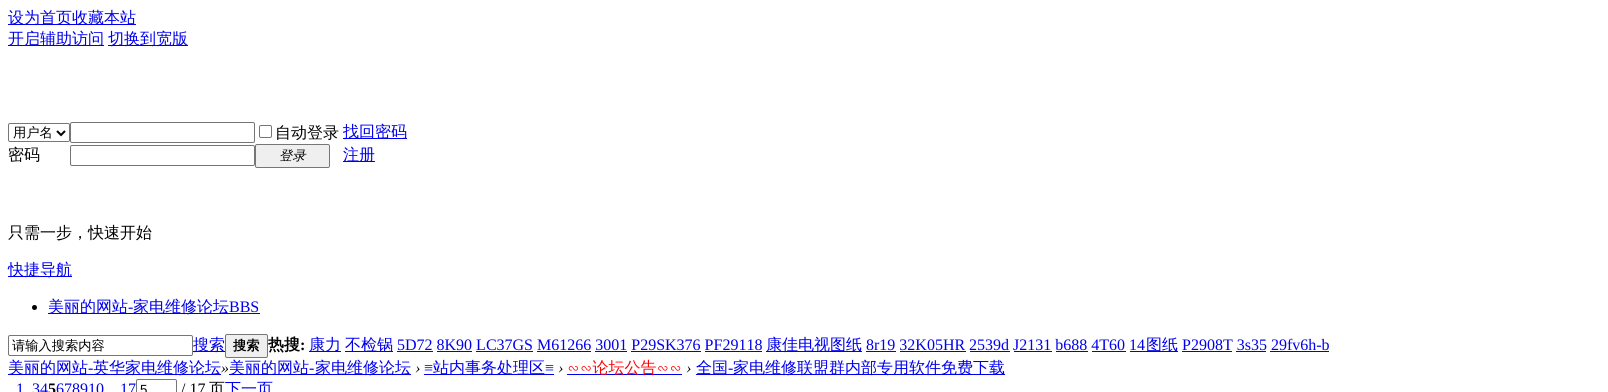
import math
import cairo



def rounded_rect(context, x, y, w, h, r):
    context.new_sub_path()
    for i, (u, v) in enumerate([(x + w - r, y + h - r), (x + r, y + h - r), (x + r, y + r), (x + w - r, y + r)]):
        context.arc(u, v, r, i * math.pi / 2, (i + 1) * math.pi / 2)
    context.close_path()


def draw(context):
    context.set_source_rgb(1, 1, 1)
    context.paint()
    context.set_source_rgb(0, 0, 238 / 255)
    context.rectangle(8, 24, 128, 1)
    context.fill()
    context.rectangle(8, 45, 96, 1)
    context.fill()
    context.rectangle(108, 45, 80, 1)
    context.fill()
    rounded_rect(context, 8.5, 123.5, 61, 18, 1.5)
    context.set_source_rgb(118 / 255, 118 / 255, 118 / 255)
    context.set_line_width(1)
    context.stroke()
    context.new_path()
    context.move_to(57, 131)
    context.line_to(61, 135)
    context.line_to(65, 131)
    context.set_source_rgb(0, 0, 0)
    context.set_line_width(2)
    context.stroke()
    rounded_rect(context, 70.5, 122.5, 184, 20, 1.5)
    context.set_source_rgb(118 / 255, 118 / 255, 118 / 255)
    context.set_line_width(1)
    context.stroke()
    rounded_rect(context, 259.5, 125.5, 12, 12, 1.5)
    context.stroke()
    context.set_source_rgb(0, 0, 238 / 255)
    context.rectangle(343, 138, 64, 1)
    context.fill()
    rounded_rect(context, 70.5, 145.5, 184, 20, 1.5)
    context.set_source_rgb(118 / 255, 118 / 255, 118 / 255)
    context.stroke()
    context.set_source_rgb(239 / 255, 239 / 255, 239 / 255)
    rounded_rect(context, 255.5, 144.5, 74, 23, 1.5)
    context.fill_preserve()
    context.set_source_rgb(118 / 255, 118 / 255, 118 / 255)
    context.stroke()
    context.set_source_rgb(0, 0, 238 / 255)
    context.rectangle(343, 161, 32, 1)
    context.fill()
    context.rectangle(8, 276, 64, 1)
    context.fill()
    context.set_source_rgb(0, 0, 0)
    context.arc(34.5, 307.5, 2.5, 0, 2 * math.pi)
    context.fill()
    context.set_source_rgb(0, 0, 238 / 255)
    context.rectangle(48, 313, 212, 1)
    context.fill()
    rounded_rect(context, 8.5, 335.5, 184, 20, 1.5)
    context.set_source_rgb(118 / 255, 118 / 255, 118 / 255)
    context.stroke()
    context.set_source_rgb(0, 0, 238 / 255)
    context.rectangle(193, 351, 32, 1)
    context.fill()
    context.set_source_rgb(239 / 255, 239 / 255, 239 / 255)
    rounded_rect(context, 225.5, 334.5, 42, 23, 1.5)
    context.fill_preserve()
    context.set_source_rgb(118 / 255, 118 / 255, 118 / 255)
    context.stroke()
    context.set_source_rgb(0, 0, 238 / 255)
    context.rectangle(309, 351, 32, 1)
    context.fill()
    context.rectangle(345, 351, 48, 1)
    context.fill()
    context.rectangle(397, 351, 36, 1)
    context.fill()
    context.rectangle(766, 351, 96, 1)
    context.fill()
    context.rectangle(866, 351, 30, 1)
    context.fill()
    context.rectangle(1130, 351, 48, 1)
    context.fill()
    context.rectangle(1182, 351, 50, 1)
    context.fill()
    context.rectangle(437, 351, 35, 1)
    context.fill()
    context.rectangle(476, 351, 57, 1)
    context.fill()
    context.rectangle(537, 351, 54, 1)
    context.fill()
    context.rectangle(595, 351, 32, 1)
    context.fill()
    context.rectangle(631, 351, 70, 1)
    context.fill()
    context.rectangle(705, 351, 57, 1)
    context.fill()
    context.rectangle(900, 351, 66, 1)
    context.fill()
    context.rectangle(970, 351, 40, 1)
    context.fill()
    context.rectangle(1014, 351, 38, 1)
    context.fill()
    context.rectangle(1056, 351, 32, 1)
    context.fill()
    context.rectangle(1092, 351, 34, 1)
    context.fill()
    context.rectangle(1236, 351, 30, 1)
    context.fill()
    context.rectangle(1270, 351, 59, 1)
    context.fill()
    context.rectangle(8, 374, 213, 1)
    context.fill()
    context.rectangle(229, 374, 182, 1)
    context.fill()
    context.rectangle(424, 374, 130, 1)
    context.fill()
    context.rectangle(567, 374, 115, 1)
    context.fill()
    context.rectangle(696, 374, 309, 1)
    context.fill()
    rounded_rect(context, 136.5, 379.5, 40, 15, 1.5)
    context.set_source_rgb(118 / 255, 118 / 255, 118 / 255)
    context.stroke()
    context.select_font_face("WenQuanYi Zen Hei Medium")
    context.set_font_size(16)
    context.set_source_rgb(0, 0, 238 / 255)
    context.move_to(8, 23)
    context.show_text("设为首页收藏本站")
    context.move_to(8, 44)
    context.show_text("开启辅助访问")
    context.move_to(108, 44)
    context.show_text("切换到宽版")
    context.set_font_size(13.25)
    context.set_source_rgb(0, 0, 0)
    context.move_to(13, 137)
    context.show_text("用户名")
    context.set_font_size(16)
    context.move_to(275, 138)
    context.show_text("自动登录")
    context.set_source_rgb(0, 0, 238 / 255)
    context.move_to(343, 137)
    context.show_text("找回密码")
    context.set_source_rgb(0, 0, 0)
    context.move_to(8, 160)
    context.show_text("密码")
    context.select_font_face("WenQuanYi Zen Hei Medium", cairo.FontSlant.ITALIC)
    context.set_font_size(13.25)
    context.move_to(279, 160)
    context.show_text("登录")
    context.select_font_face("WenQuanYi Zen Hei Medium")
    context.set_font_size(16)
    context.set_source_rgb(0, 0, 238 / 255)
    context.move_to(343, 160)
    context.show_text("注册")
    context.set_source_rgb(0, 0, 0)
    context.move_to(8, 238)
    context.show_text("只需一步，快速开始")
    context.set_source_rgb(0, 0, 238 / 255)
    context.move_to(8, 275)
    context.show_text("快捷导航")
    context.move_to(48, 312)
    context.show_text("美丽的网站")
    context.select_font_face("Liberation Serif")
    context.move_to(128, 312)
    context.show_text("-")
    context.select_font_face("WenQuanYi Zen Hei Medium")
    context.move_to(133, 312)
    context.show_text("家电维修论坛")
    context.select_font_face("Liberation Serif")
    context.move_to(229, 312)
    context.show_text("BBS")
    context.select_font_face("WenQuanYi Zen Hei Medium")
    context.set_font_size(13.25)
    context.set_source_rgb(0, 0, 0)
    context.move_to(12, 350)
    context.show_text("请输入搜索内容")
    context.set_font_size(16)
    context.set_source_rgb(0, 0, 238 / 255)
    context.move_to(193, 350)
    context.show_text("搜索")
    context.select_font_face("WenQuanYi Zen Hei", cairo.FontSlant.NORMAL, cairo.FontWeight.BOLD)
    context.set_font_size(13.25)
    context.set_source_rgb(0, 0, 0)
    context.move_to(233, 350)
    context.show_text("搜索")
    context.set_font_size(16)
    context.move_to(268, 350)
    context.show_text("热搜")
    context.select_font_face("Liberation Serif", cairo.FontSlant.NORMAL, cairo.FontWeight.BOLD)
    context.move_to(300, 350)
    context.show_text(":")
    context.select_font_face("WenQuanYi Zen Hei Medium")
    context.set_source_rgb(0, 0, 238 / 255)
    context.move_to(309, 350)
    context.show_text("康力")
    context.move_to(345, 350)
    context.show_text("不检锅")
    context.select_font_face("Liberation Serif")
    context.move_to(397, 350)
    context.show_text("5D72 8K90 LC37GS M61266 3001 P29SK376 PF29118")
    context.select_font_face("WenQuanYi Zen Hei Medium")
    context.move_to(766, 350)
    context.show_text("康佳电视图纸")
    context.select_font_face("Liberation Serif")
    context.move_to(866, 350)
    context.show_text("8r19 32K05HR 2539d J2131 b688 4T60 14")
    context.select_font_face("WenQuanYi Zen Hei Medium")
    context.move_to(1146, 350)
    context.show_text("图纸")
    context.select_font_face("Liberation Serif")
    context.move_to(1182, 350)
    context.show_text("P2908T 3s35 29fv6h-b")
    context.select_font_face("WenQuanYi Zen Hei Medium")
    context.move_to(8, 373)
    context.show_text("美丽的网站")
    context.select_font_face("Liberation Serif")
    context.move_to(88, 373)
    context.show_text("-")
    context.select_font_face("WenQuanYi Zen Hei Medium")
    context.move_to(93, 373)
    context.show_text("英华家电维修论坛")
    context.select_font_face("Liberation Serif", cairo.FontSlant.ITALIC)
    context.set_source_rgb(0, 0, 0)
    context.move_to(221, 373)
    context.show_text("»")
    context.select_font_face("WenQuanYi Zen Hei Medium")
    context.set_source_rgb(0, 0, 238 / 255)
    context.move_to(229, 373)
    context.show_text("美丽的网站")
    context.select_font_face("Liberation Serif")
    context.move_to(309, 373)
    context.show_text("-")
    context.select_font_face("WenQuanYi Zen Hei Medium")
    context.move_to(315, 373)
    context.show_text("家电维修论坛")
    context.select_font_face("Liberation Serif", cairo.FontSlant.ITALIC)
    context.set_source_rgb(0, 0, 0)
    context.move_to(415, 373)
    context.show_text("›")
    context.select_font_face("Liberation Serif")
    context.set_source_rgb(0, 0, 238 / 255)
    context.move_to(424, 373)
    context.show_text("≡")
    context.select_font_face("WenQuanYi Zen Hei Medium")
    context.move_to(433, 373)
    context.show_text("站内事务处理区")
    context.select_font_face("Liberation Serif")
    context.move_to(545, 373)
    context.show_text("≡")
    context.select_font_face("Liberation Serif", cairo.FontSlant.ITALIC)
    context.set_source_rgb(0, 0, 0)
    context.move_to(558, 373)
    context.show_text("›")
    context.select_font_face("WenQuanYi Zen Hei Medium")
    context.set_source_rgb(1, 0, 0)
    context.move_to(567, 373)
    context.show_text("∽∽论坛公告∽∽")
    context.select_font_face("Liberation Serif", cairo.FontSlant.ITALIC)
    context.set_source_rgb(0, 0, 0)
    context.move_to(686, 373)
    context.show_text("›")
    context.select_font_face("WenQuanYi Zen Hei Medium")
    context.set_source_rgb(0, 0, 238 / 255)
    context.move_to(696, 373)
    context.show_text("全国")
    context.select_font_face("Liberation Serif")
    context.move_to(728, 373)
    context.show_text("-")
    context.select_font_face("WenQuanYi Zen Hei Medium")
    context.move_to(733, 373)
    context.show_text("家电维修联盟群内部专用软件免费下载")
    context.select_font_face("Liberation Serif")
    context.move_to(16, 394)
    context.show_text("1")
    context.move_to(32, 394)
    context.show_text("34")
    context.select_font_face("Liberation Serif", cairo.FontSlant.NORMAL, cairo.FontWeight.BOLD)
    context.set_source_rgb(0, 0, 0)
    context.move_to(48, 394)
    context.show_text("5")
    context.select_font_face("Liberation Serif")
    context.set_source_rgb(0, 0, 238 / 255)
    context.move_to(56, 394)
    context.show_text("678910")
    context.move_to(120, 394)
    context.show_text("17")
    context.select_font_face("Liberation Sans")
    context.set_font_size(13.25)
    context.set_source_rgb(0, 0, 0)
    context.move_to(140, 394)
    context.show_text("5")
    context.select_font_face("Liberation Serif")
    context.set_font_size(16)
    context.move_to(181, 394)
    context.show_text("/ 17")
    context.select_font_face("WenQuanYi Zen Hei Medium")
    context.move_to(209, 394)
    context.show_text("页")
    context.set_source_rgb(0, 0, 238 / 255)
    context.move_to(225, 394)
    context.show_text("下一页")


surface = cairo.ImageSurface(cairo.Format.RGB24, 1608, 392)
context = cairo.Context(surface)
options = cairo.FontOptions()
options.set_hint_metrics(cairo.HintMetrics.OFF)
options.set_hint_style(cairo.HintStyle.NONE)
context.set_font_options(options)
context.set_miter_limit(4)
draw(context)
surface.write_to_png("out.png")
